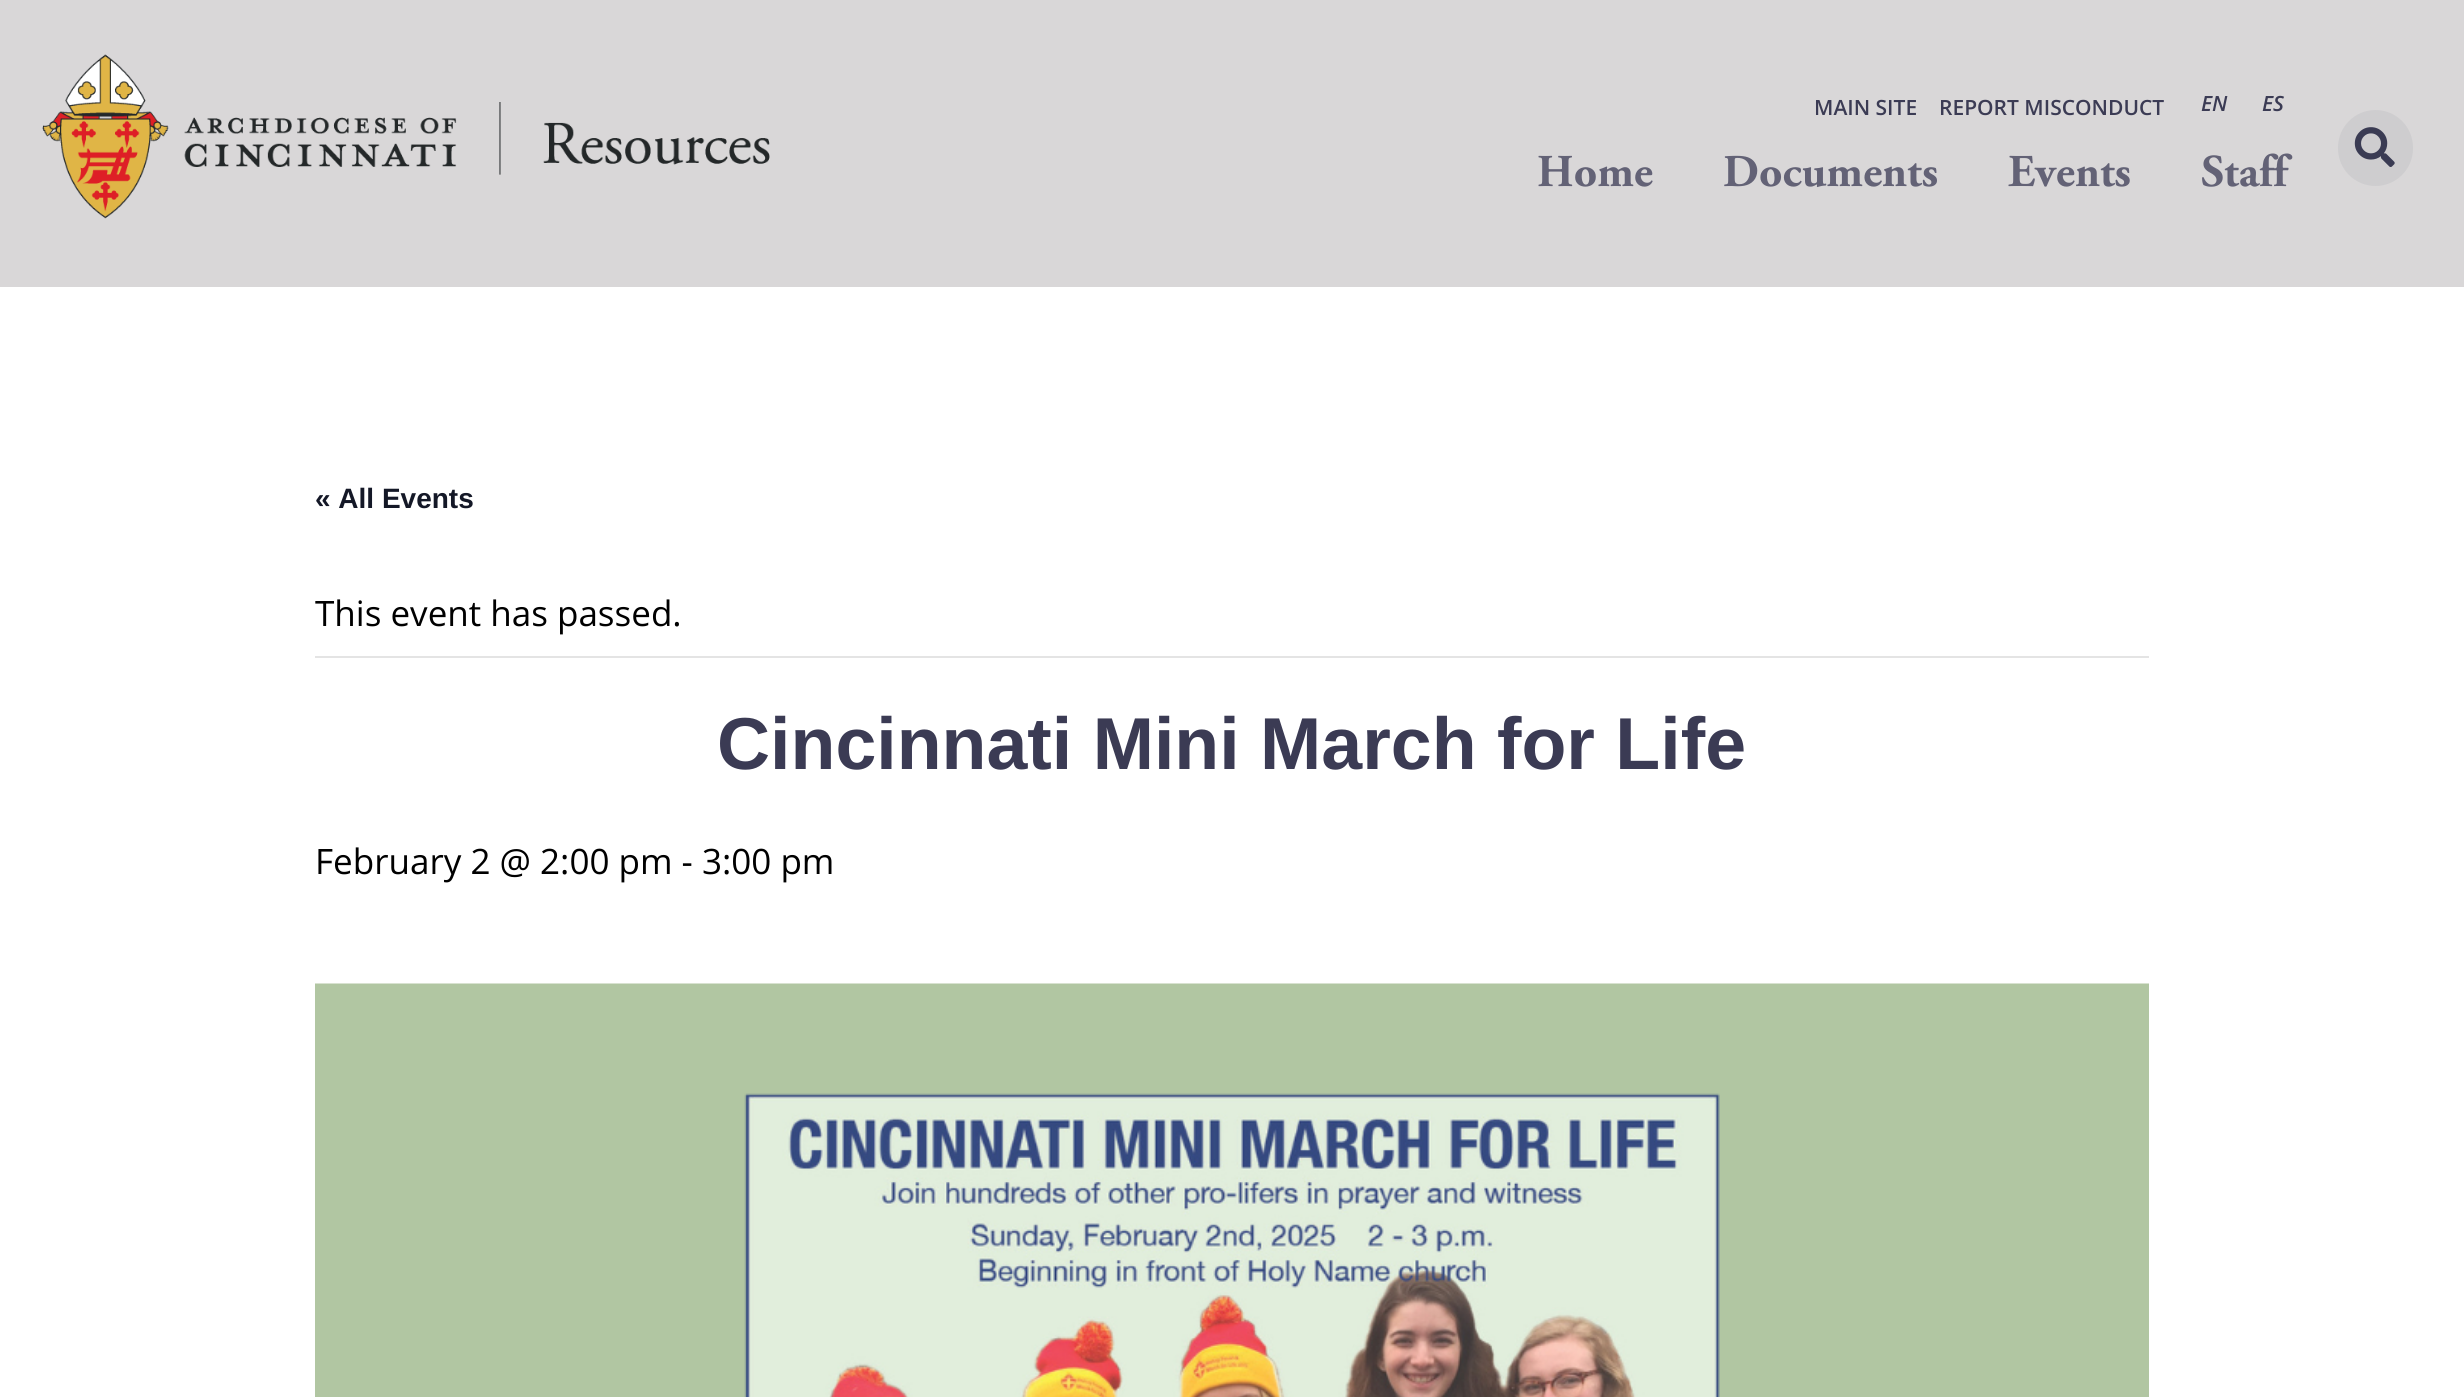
import math
import cairo



def rounded_rect(context, x, y, w, h, r):
    context.new_sub_path()
    for i, (u, v) in enumerate([(x + w - r, y + h - r), (x + r, y + h - r), (x + r, y + r), (x + w - r, y + r)]):
        context.arc(u, v, r, i * math.pi / 2, (i + 1) * math.pi / 2)
    context.close_path()


def draw_image(context, path, x, y, w, h):
    context.save()
    context.set_source_surface(cairo.ImageSurface.create_from_png(path), x, y)
    context.rectangle(x, y, w, h)
    context.fill()
    context.restore()


def draw(context):
    context.set_source_rgb(1, 1, 1)
    context.paint()
    context.set_source_rgb(217 / 255, 215 / 255, 216 / 255)
    context.rectangle(0, 0, 2464, 287)
    context.fill()
    draw_image(context, "images/1.png", 42, 54, 728, 165)
    context.set_source_rgb(206 / 255, 205 / 255, 207 / 255)
    rounded_rect(context, 2338, 110, 75, 76, 37.5)
    context.fill()
    draw_image(context, "images/2.png", 2354, 127, 41, 40)
    context.set_source_rgb(228 / 255, 228 / 255, 228 / 255)
    context.rectangle(315, 656, 1834, 2)
    context.fill()
    draw_image(context, "images/3.png", 315, 983, 1834, 414)
    context.select_font_face("Open Sans SemiBold")
    context.set_font_size(21)
    context.set_source_rgb(59 / 255, 59 / 255, 84 / 255)
    context.move_to(1814, 115)
    context.show_text("MAIN SITE")
    context.move_to(1939, 115)
    context.show_text("REPORT MISCONDUCT")
    context.select_font_face("Open Sans SemiBold", cairo.FontSlant.ITALIC)
    context.move_to(2201, 111)
    context.show_text("EN")
    context.move_to(2262, 111)
    context.show_text("ES")
    context.select_font_face("Adobe Garamond", cairo.FontSlant.NORMAL, cairo.FontWeight.BOLD)
    context.set_font_size(45.5)
    context.set_source_rgb(99 / 255, 98 / 255, 118 / 255)
    context.move_to(1537, 186)
    context.show_text("Home")
    context.move_to(1723, 186)
    context.show_text("Documents")
    context.move_to(2008, 186)
    context.show_text("Events")
    context.move_to(2201, 186)
    context.show_text("Staff")
    context.select_font_face("Liberation Sans", cairo.FontSlant.NORMAL, cairo.FontWeight.BOLD)
    context.set_font_size(28)
    context.set_source_rgb(20 / 255, 24 / 255, 39 / 255)
    context.move_to(315, 508)
    context.show_text("« All Events")
    context.select_font_face("Open Sans")
    context.set_font_size(35)
    context.set_source_rgb(0, 0, 0)
    context.move_to(315, 626)
    context.show_text("This event has passed.")
    context.select_font_face("Liberation Sans", cairo.FontSlant.NORMAL, cairo.FontWeight.BOLD)
    context.set_font_size(73.5)
    context.set_source_rgb(59 / 255, 59 / 255, 84 / 255)
    context.move_to(717, 769)
    context.show_text("Cincinnati Mini March for Life")
    context.select_font_face("Open Sans")
    context.set_font_size(35)
    context.set_source_rgb(0, 0, 0)
    context.move_to(315, 874)
    context.show_text("February 2 @ 2:00 pm - 3:00 pm")


surface = cairo.ImageSurface(cairo.Format.RGB24, 2464, 1397)
context = cairo.Context(surface)
options = cairo.FontOptions()
options.set_hint_metrics(cairo.HintMetrics.OFF)
options.set_hint_style(cairo.HintStyle.NONE)
context.set_font_options(options)
context.set_miter_limit(4)
draw(context)
surface.write_to_png("out.png")
